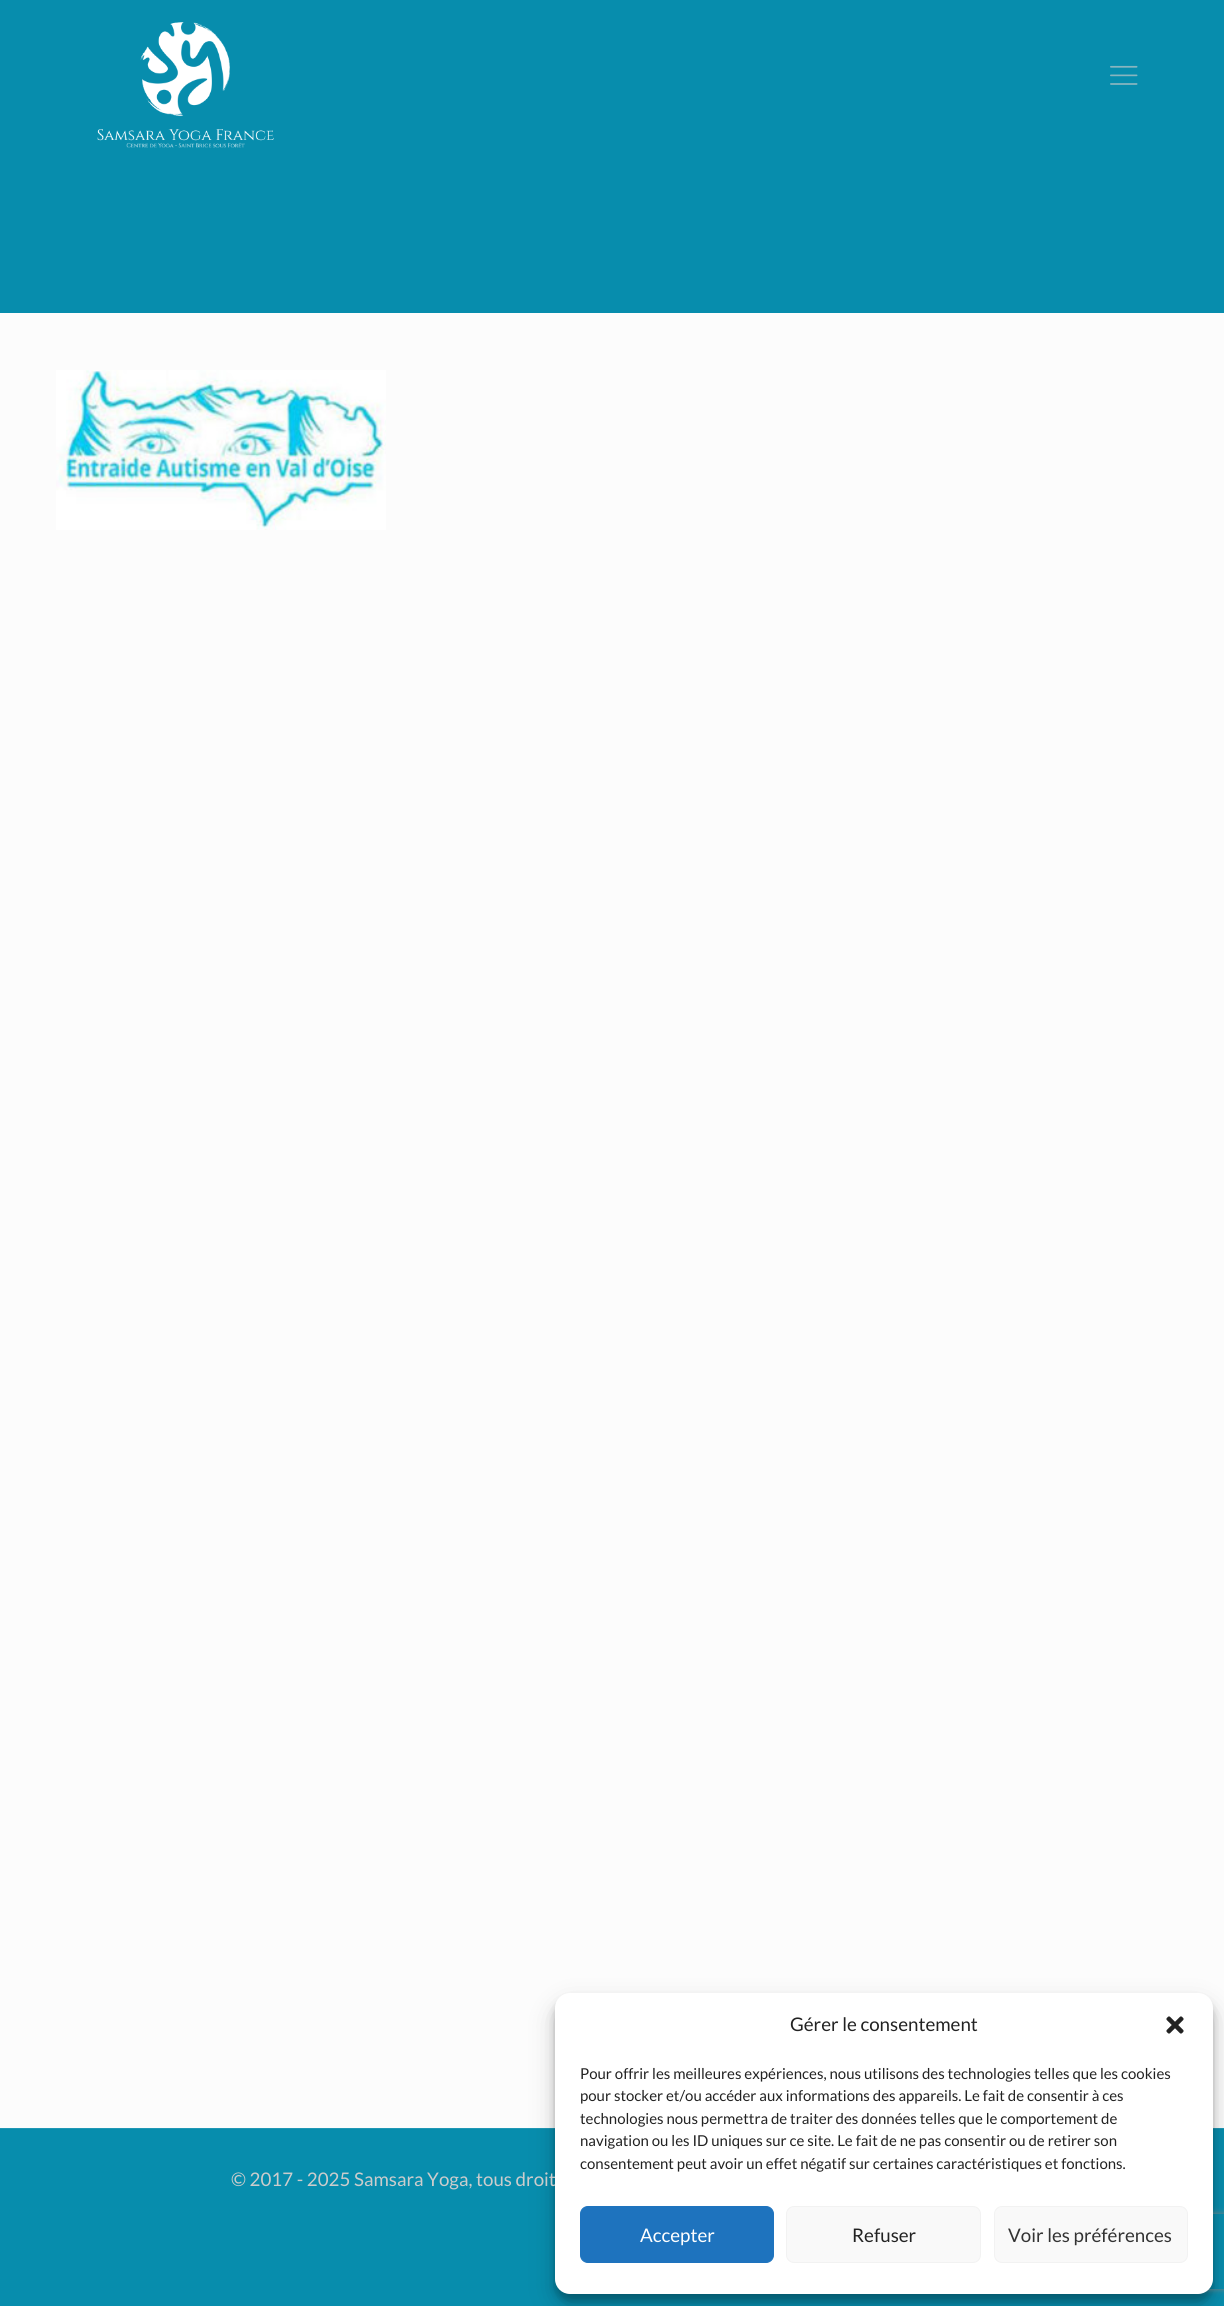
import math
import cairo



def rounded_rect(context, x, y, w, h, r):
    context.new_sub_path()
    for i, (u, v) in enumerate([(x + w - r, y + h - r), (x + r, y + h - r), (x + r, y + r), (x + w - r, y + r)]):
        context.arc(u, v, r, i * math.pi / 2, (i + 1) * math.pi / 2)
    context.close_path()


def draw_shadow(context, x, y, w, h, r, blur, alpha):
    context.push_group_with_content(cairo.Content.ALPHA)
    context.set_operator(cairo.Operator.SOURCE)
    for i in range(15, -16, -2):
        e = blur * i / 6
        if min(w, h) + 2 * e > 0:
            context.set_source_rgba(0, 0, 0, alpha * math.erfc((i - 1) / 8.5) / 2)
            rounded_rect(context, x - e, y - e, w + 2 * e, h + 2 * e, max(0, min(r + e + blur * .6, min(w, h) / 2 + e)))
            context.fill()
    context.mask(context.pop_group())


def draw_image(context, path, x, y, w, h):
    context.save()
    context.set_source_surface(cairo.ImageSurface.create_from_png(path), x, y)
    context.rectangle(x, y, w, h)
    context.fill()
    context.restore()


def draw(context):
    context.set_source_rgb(252 / 255, 252 / 255, 252 / 255)
    context.paint()
    context.set_source_rgb(7 / 255, 141 / 255, 173 / 255)
    context.rectangle(0, 0, 1224, 313)
    context.fill()
    draw_image(context, "images/1.png", 97, 22, 177, 126)
    draw_image(context, "images/2.png", 1110, 65, 28, 20)
    draw_image(context, "images/3.png", 56, 370, 330, 160)
    context.rectangle(0, 2129, 1224, 177)
    context.fill()
    context.set_source_rgb(32 / 255, 152 / 255, 181 / 255)
    context.rectangle(0, 2128, 1224, 1)
    context.fill()
    context.set_source_rgb(0, 0, 0)
    draw_shadow(context, 555, 2000, 658, 301, 15, 4, 0.23)
    draw_shadow(context, 555, 2005, 658, 301, 15, 12.5, 0.19)
    context.save()
    context.set_fill_rule(cairo.FillRule.EVEN_ODD)
    context.new_path()
    context.move_to(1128, 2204)
    context.line_to(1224, 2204)
    context.line_to(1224, 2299)
    context.line_to(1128, 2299)
    context.close_path()
    context.move_to(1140.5, 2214)
    context.line_to(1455.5, 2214)
    context.curve_to(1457, 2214, 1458, 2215, 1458, 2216.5)
    context.line_to(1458, 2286.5)
    context.curve_to(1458, 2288, 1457, 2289, 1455.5, 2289)
    context.line_to(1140.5, 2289)
    context.curve_to(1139, 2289, 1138, 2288, 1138, 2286.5)
    context.line_to(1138, 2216.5)
    context.curve_to(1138, 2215, 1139, 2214, 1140.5, 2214)
    context.close_path()
    context.clip()
    context.set_source_rgb(128 / 255, 128 / 255, 128 / 255)
    draw_shadow(context, 1138, 2214, 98, 75, 2.5, 3, 1)
    context.restore()
    context.select_font_face("Lato")
    context.set_font_size(18.75)
    context.set_source_rgb(204 / 255, 204 / 255, 204 / 255)
    context.move_to(231, 2186)
    context.show_text("© 2017 - 2025 Samsara Yoga, tous droit")
    context.set_source_rgb(1, 1, 1)
    rounded_rect(context, 555, 1993, 658, 301, 15)
    context.fill()
    context.set_source_rgb(34 / 255, 34 / 255, 34 / 255)
    context.move_to(790, 2031)
    context.show_text("Gérer le consentement")
    draw_image(context, "images/4.png", 1166, 2016, 18, 18)
    context.set_font_size(15)
    context.move_to(580, 2079)
    context.show_text("Pour offrir les meilleures expériences, nous utilisons des technologies telles que les cookies")
    context.move_to(580, 2101)
    context.show_text("pour stocker et/ou accéder aux informations des appareils. Le fait de consentir à ces")
    context.move_to(580, 2124)
    context.show_text("technologies nous permettra de traiter des données telles que le comportement de")
    context.move_to(580, 2146)
    context.show_text("navigation ou les ID uniques sur ce site. Le fait de ne pas consentir ou de retirer son")
    context.move_to(580, 2169)
    context.show_text("consentement peut avoir un effet négatif sur certaines caractéristiques et fonctions.")
    context.set_source_rgb(30 / 255, 115 / 255, 190 / 255)
    rounded_rect(context, 580.5, 2206.5, 193, 56, 7.5)
    context.fill_preserve()
    context.set_line_width(1)
    context.stroke()
    context.set_font_size(18.75)
    context.set_source_rgb(1, 1, 1)
    context.move_to(640, 2242)
    context.show_text("Accepter")
    context.set_source_rgb(249 / 255, 249 / 255, 249 / 255)
    rounded_rect(context, 786.5, 2206.5, 194, 56, 7.5)
    context.fill_preserve()
    context.set_source_rgb(242 / 255, 242 / 255, 242 / 255)
    context.stroke()
    context.set_source_rgb(34 / 255, 34 / 255, 34 / 255)
    context.move_to(852, 2242)
    context.show_text("Refuser")
    context.set_source_rgb(249 / 255, 249 / 255, 249 / 255)
    rounded_rect(context, 994.5, 2206.5, 193, 56, 7.5)
    context.fill_preserve()
    context.set_source_rgb(242 / 255, 242 / 255, 242 / 255)
    context.stroke()
    context.set_source_rgb(51 / 255, 51 / 255, 51 / 255)
    context.move_to(1008, 2242)
    context.show_text("Voir les préférences")


surface = cairo.ImageSurface(cairo.Format.RGB24, 1224, 2306)
context = cairo.Context(surface)
options = cairo.FontOptions()
options.set_hint_metrics(cairo.HintMetrics.OFF)
options.set_hint_style(cairo.HintStyle.NONE)
context.set_font_options(options)
context.set_miter_limit(4)
draw(context)
surface.write_to_png("out.png")
